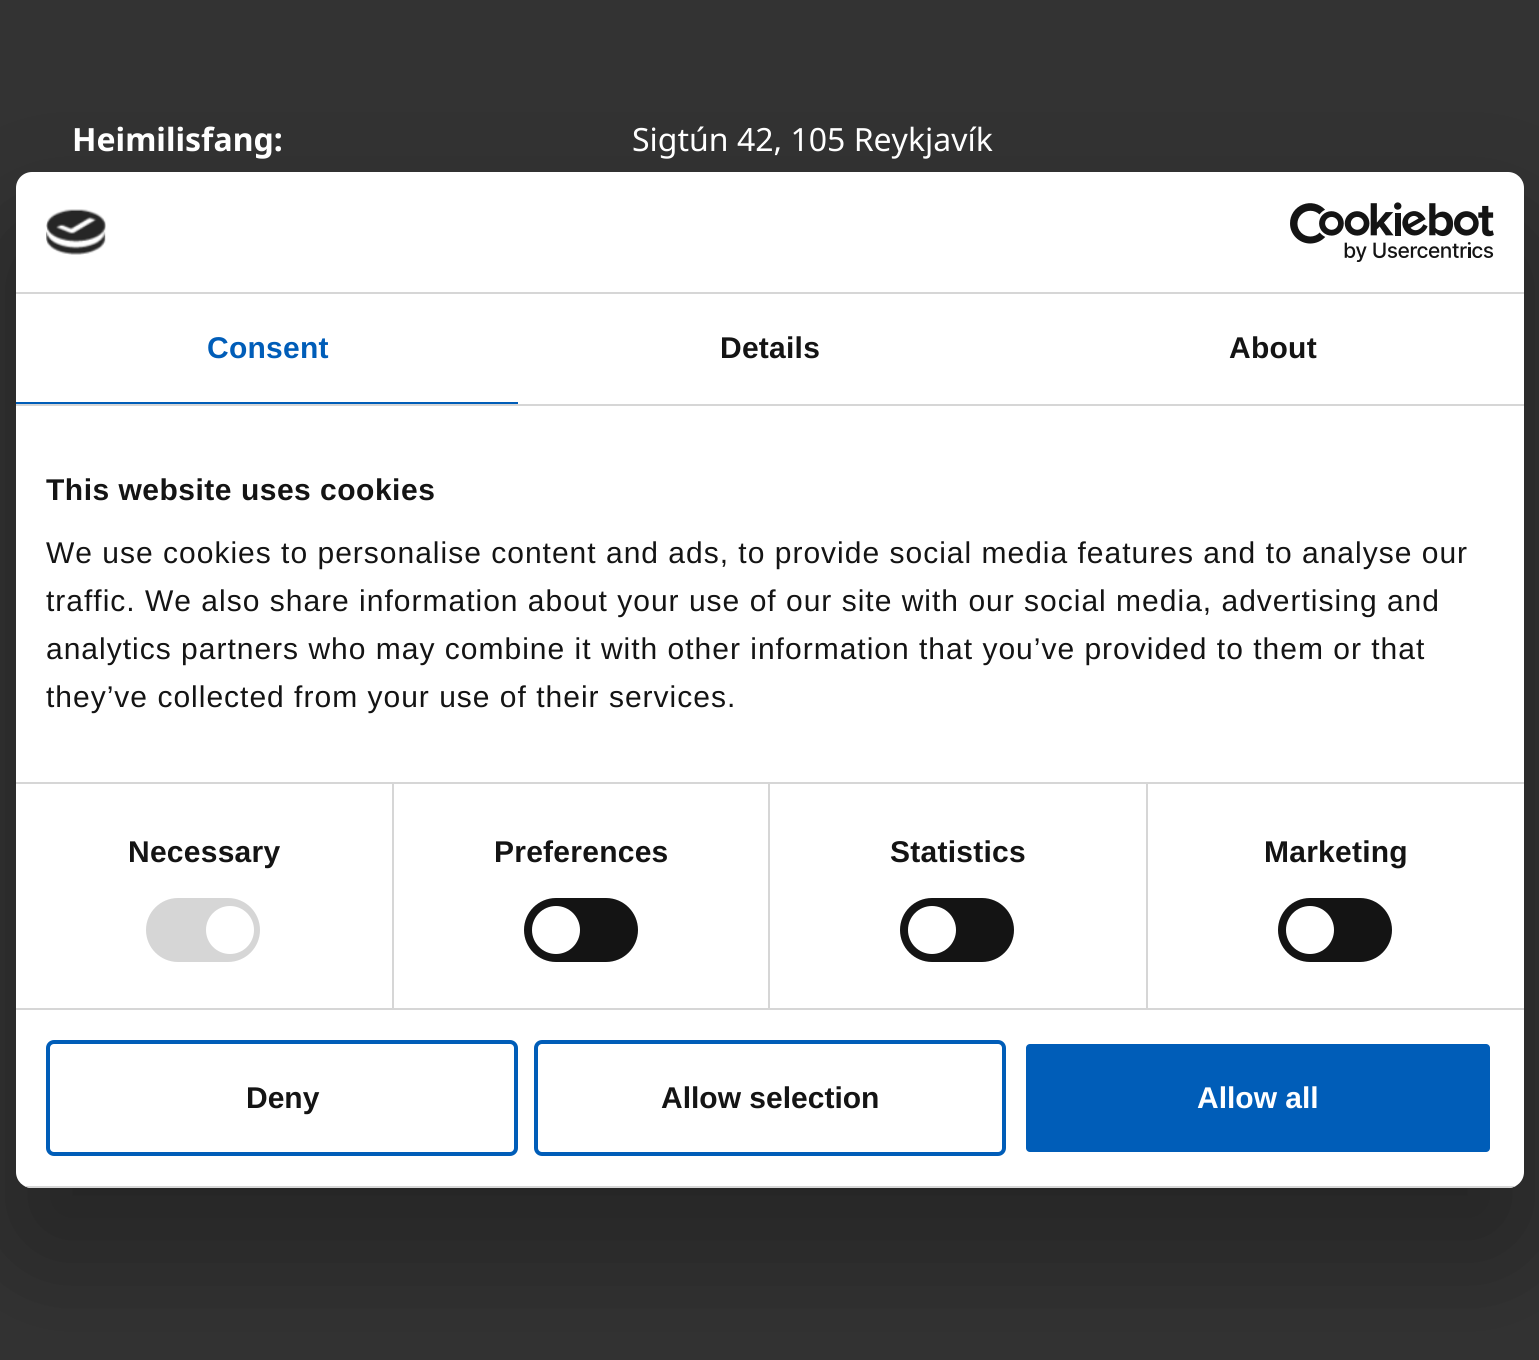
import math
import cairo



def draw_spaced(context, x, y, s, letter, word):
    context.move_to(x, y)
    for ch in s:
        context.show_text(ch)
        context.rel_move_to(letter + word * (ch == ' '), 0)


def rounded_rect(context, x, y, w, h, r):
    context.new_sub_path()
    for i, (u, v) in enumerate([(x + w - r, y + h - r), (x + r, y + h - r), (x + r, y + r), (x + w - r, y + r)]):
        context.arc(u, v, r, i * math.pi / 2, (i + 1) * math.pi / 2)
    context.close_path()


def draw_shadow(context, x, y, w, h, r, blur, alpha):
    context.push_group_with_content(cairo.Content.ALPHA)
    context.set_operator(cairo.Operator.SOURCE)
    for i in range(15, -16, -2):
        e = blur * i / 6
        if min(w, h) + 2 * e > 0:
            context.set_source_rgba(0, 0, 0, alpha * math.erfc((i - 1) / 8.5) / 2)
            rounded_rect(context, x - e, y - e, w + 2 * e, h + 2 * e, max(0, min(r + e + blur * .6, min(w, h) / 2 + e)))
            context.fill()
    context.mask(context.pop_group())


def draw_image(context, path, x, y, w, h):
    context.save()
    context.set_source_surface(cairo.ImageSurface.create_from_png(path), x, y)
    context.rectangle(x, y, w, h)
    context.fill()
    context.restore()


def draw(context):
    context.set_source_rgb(51 / 255, 51 / 255, 51 / 255)
    context.paint()
    context.set_source_rgb(0, 0, 0)
    draw_shadow(context, 16, 236, 1508, 1016, 16, 68, 0.3)
    context.set_source_rgb(1, 1, 1)
    rounded_rect(context, 16, 172, 1508, 1016, 16)
    context.fill()
    context.set_source_rgb(214 / 255, 214 / 255, 214 / 255)
    context.rectangle(16, 292, 1508, 2)
    context.fill()
    draw_image(context, "images/1.png", 46, 209, 60, 46)
    draw_image(context, "images/2.png", 1290, 202, 204, 60)
    context.rectangle(16, 404, 1508, 2)
    context.fill()
    context.set_source_rgb(0, 93 / 255, 184 / 255)
    context.rectangle(16, 402, 502, 2)
    context.fill()
    context.set_source_rgb(214 / 255, 214 / 255, 214 / 255)
    context.rectangle(16, 782, 1508, 2)
    context.fill()
    context.rectangle(16, 1008, 1508, 2)
    context.fill()
    context.rectangle(392, 784, 2, 224)
    context.fill()
    rounded_rect(context, 146, 898, 114, 64, 32)
    context.fill()
    context.set_source_rgb(1, 1, 1)
    context.arc(230, 930, 24, 0, 2 * math.pi)
    context.fill()
    context.set_source_rgb(214 / 255, 214 / 255, 214 / 255)
    context.rectangle(768, 784, 2, 224)
    context.fill()
    context.set_source_rgb(20 / 255, 20 / 255, 20 / 255)
    rounded_rect(context, 524, 898, 114, 64, 32)
    context.fill()
    context.set_source_rgb(1, 1, 1)
    context.arc(556, 930, 24, 0, 2 * math.pi)
    context.fill()
    context.set_source_rgb(214 / 255, 214 / 255, 214 / 255)
    context.rectangle(1146, 784, 2, 224)
    context.fill()
    context.set_source_rgb(20 / 255, 20 / 255, 20 / 255)
    rounded_rect(context, 900, 898, 114, 64, 32)
    context.fill()
    context.set_source_rgb(1, 1, 1)
    context.arc(932, 930, 24, 0, 2 * math.pi)
    context.fill()
    context.set_source_rgb(20 / 255, 20 / 255, 20 / 255)
    rounded_rect(context, 1278, 898, 114, 64, 32)
    context.fill()
    context.set_source_rgb(1, 1, 1)
    context.arc(1310, 930, 24, 0, 2 * math.pi)
    context.fill()
    context.save()
    rounded_rect(context, 16, 172, 1508, 1016, 16)
    context.clip()
    context.set_source_rgb(214 / 255, 214 / 255, 214 / 255)
    context.rectangle(16, 1186, 1508, 2)
    context.fill()
    context.restore()
    rounded_rect(context, 48, 1042, 468, 112, 6)
    context.set_source_rgb(0, 93 / 255, 184 / 255)
    context.set_line_width(4)
    context.stroke()
    rounded_rect(context, 536, 1042, 468, 112, 6)
    context.stroke()
    rounded_rect(context, 1024, 1042, 468, 112, 6)
    context.fill_preserve()
    context.set_source_rgb(1, 1, 1)
    context.stroke()
    context.select_font_face("Noto Sans", cairo.FontSlant.NORMAL, cairo.FontWeight.BOLD)
    context.set_font_size(32)
    context.move_to(72, 151)
    context.show_text("Heimilisfang:")
    context.select_font_face("Noto Sans")
    context.move_to(632, 151)
    context.show_text("Sigtún 42, 105 Reykjavík")
    context.select_font_face("Liberation Sans", cairo.FontSlant.NORMAL, cairo.FontWeight.BOLD)
    context.set_font_size(30)
    context.set_source_rgb(0, 93 / 255, 184 / 255)
    draw_spaced(context, 207, 358, "Consent", 0.25, 0)
    context.set_source_rgb(20 / 255, 20 / 255, 20 / 255)
    draw_spaced(context, 720, 358, "Details", 0.25, 0)
    draw_spaced(context, 1229, 358, "About", 0.25, 0)
    draw_spaced(context, 46, 500, "This website uses cookies", 0.5, 0)
    context.select_font_face("Liberation Sans")
    draw_spaced(context, 46, 563, "We use cookies to personalise content and ads, to provide social media features and to analyse our", 1, 0)
    draw_spaced(context, 46, 611, "traffic. We also share information about your use of our site with our social media, advertising and", 1, 0)
    draw_spaced(context, 46, 659, "analytics partners who may combine it with other information that you’ve provided to them or that", 1, 0)
    draw_spaced(context, 46, 707, "they’ve collected from your use of their services.", 1, 0)
    context.select_font_face("Liberation Sans", cairo.FontSlant.NORMAL, cairo.FontWeight.BOLD)
    draw_spaced(context, 128, 862, "Necessary", 0.25, 0)
    draw_spaced(context, 494, 862, "Preferences", 0.25, 0)
    draw_spaced(context, 890, 862, "Statistics", 0.25, 0)
    draw_spaced(context, 1264, 862, "Marketing", 0.25, 0)
    context.move_to(246, 1108)
    context.show_text("Deny")
    context.move_to(661, 1108)
    context.show_text("Allow selection")
    context.set_source_rgb(1, 1, 1)
    context.move_to(1197, 1108)
    context.show_text("Allow all")


surface = cairo.ImageSurface(cairo.Format.RGB24, 1539, 1360)
context = cairo.Context(surface)
options = cairo.FontOptions()
options.set_hint_metrics(cairo.HintMetrics.OFF)
options.set_hint_style(cairo.HintStyle.NONE)
context.set_font_options(options)
context.set_miter_limit(4)
draw(context)
surface.write_to_png("out.png")
